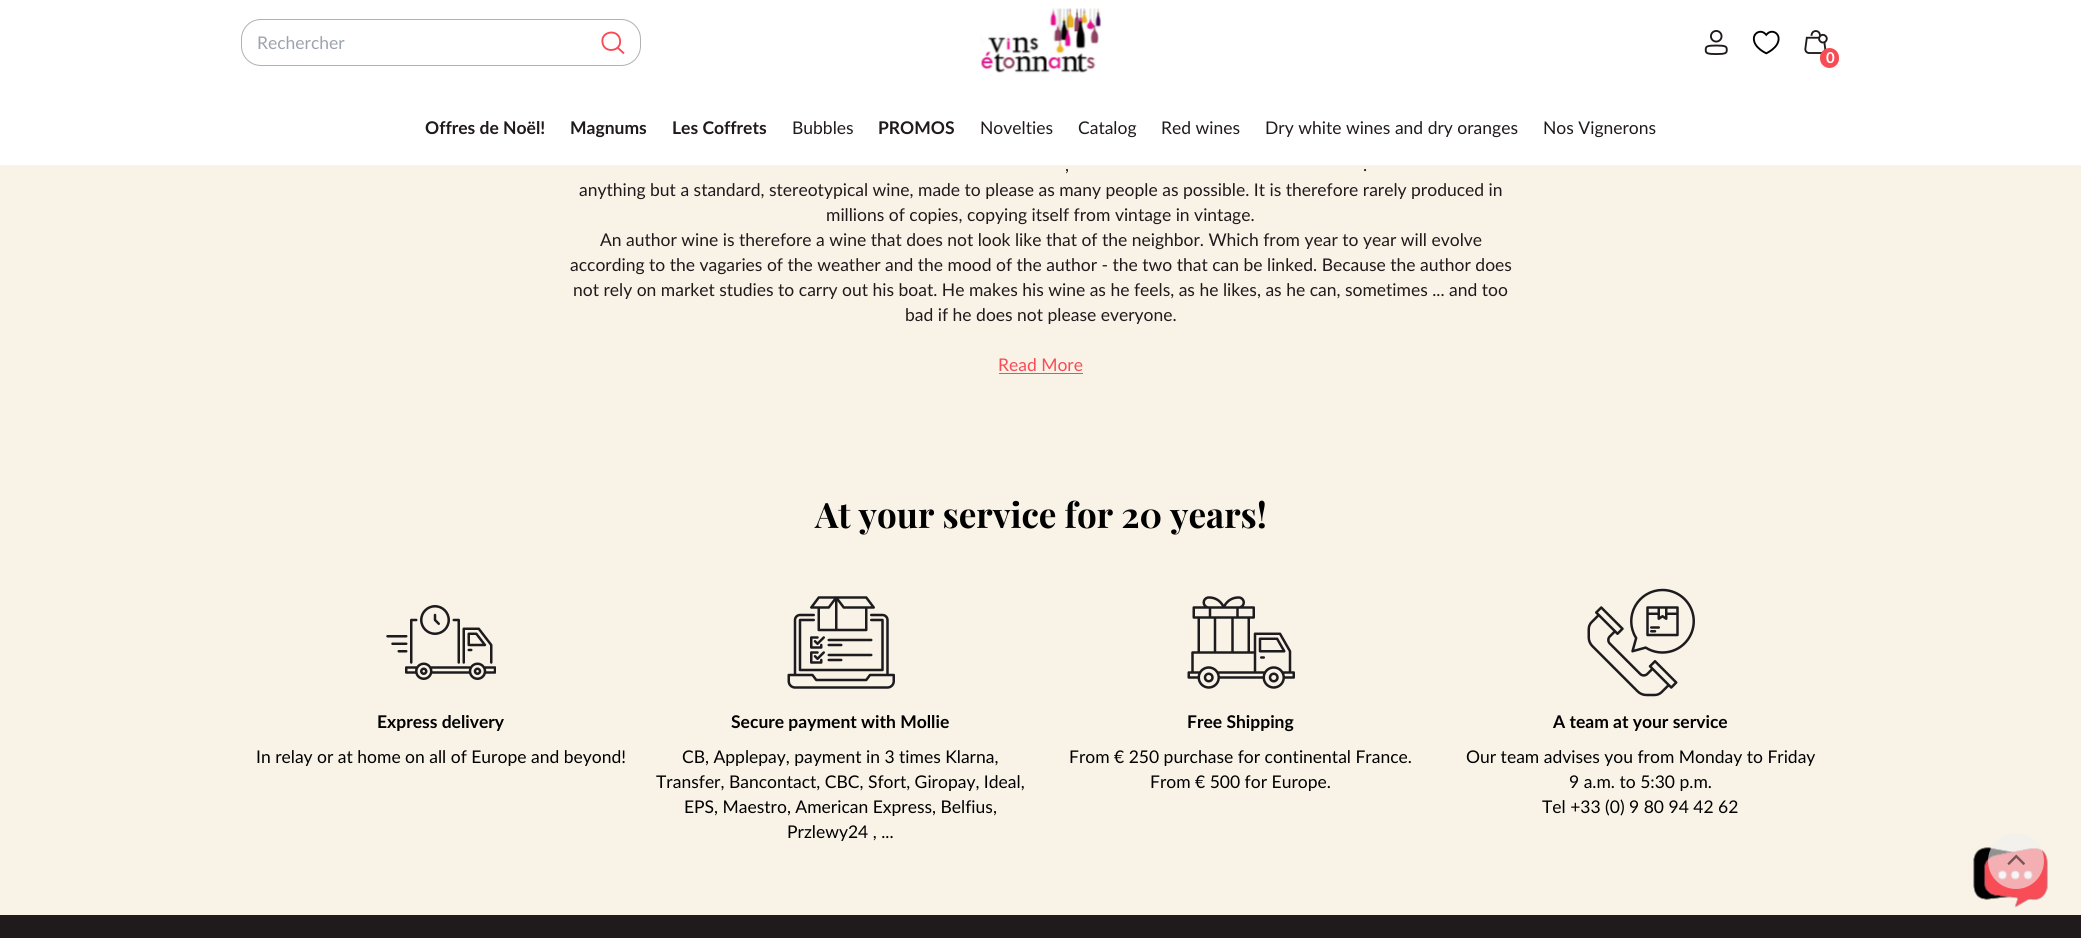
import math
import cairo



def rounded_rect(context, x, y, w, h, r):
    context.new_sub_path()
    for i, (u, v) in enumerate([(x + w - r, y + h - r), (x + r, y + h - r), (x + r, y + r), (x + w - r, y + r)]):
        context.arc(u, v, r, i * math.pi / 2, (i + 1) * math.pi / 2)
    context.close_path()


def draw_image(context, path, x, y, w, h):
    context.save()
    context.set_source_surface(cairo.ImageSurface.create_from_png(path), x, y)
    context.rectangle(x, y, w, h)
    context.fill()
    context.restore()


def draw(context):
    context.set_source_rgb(248 / 255, 242 / 255, 231 / 255)
    context.paint()
    context.set_source_rgb(1, 1, 1)
    context.rectangle(0, 0, 2081, 165)
    context.fill()
    rounded_rect(context, 241.5, 19.5, 399, 46, 19.5)
    context.set_source_rgb(177 / 255, 177 / 255, 177 / 255)
    context.set_line_width(1)
    context.stroke()
    context.new_path()
    context.move_to(620, 40)
    context.curve_to(622, 51.5, 604, 54, 602.5, 42.5)
    context.curve_to(600.5, 31, 618.5, 28.5, 620, 40)
    context.close_path()
    context.move_to(618, 48)
    context.line_to(624, 53.5)
    context.set_source_rgb(248 / 255, 76 / 255, 85 / 255)
    context.set_line_width(1.9)
    context.stroke()
    draw_image(context, "images/1.png", 980, 8, 122, 65)
    draw_image(context, "images/2.png", 1704, 30, 24, 25)
    draw_image(context, "images/3.png", 1752, 30, 28, 25)
    draw_image(context, "images/4.png", 1804, 30, 24, 24)
    rounded_rect(context, 1820, 48, 19, 20, 9.5)
    context.fill()
    context.rectangle(999, 373, 84, 1)
    context.fill()
    draw_image(context, "images/5.png", 386, 605, 110, 75)
    draw_image(context, "images/6.png", 787, 596, 108, 93)
    draw_image(context, "images/7.png", 1187, 596, 108, 93)
    draw_image(context, "images/8.png", 1587, 588, 108, 109)
    draw_image(context, "images/10.png", 1973, 847, 75, 61)
    context.set_source_rgba(240 / 255, 240 / 255, 240 / 255, 0.6)
    context.arc(2016, 861, 28, 0, 2 * math.pi)
    context.fill()
    draw_image(context, "images/9.png", 2007, 854, 18, 11)
    context.set_source_rgb(32 / 255, 26 / 255, 28 / 255)
    context.rectangle(0, 915, 2081, 23)
    context.fill()
    context.select_font_face("Lato")
    context.set_font_size(17.5)
    context.set_source_rgb(156 / 255, 163 / 255, 175 / 255)
    context.move_to(257, 49)
    context.show_text("Rechercher")
    context.select_font_face("Lato", cairo.FontSlant.NORMAL, cairo.FontWeight.BOLD)
    context.set_font_size(15)
    context.set_source_rgb(1, 1, 1)
    context.move_to(1826, 63)
    context.show_text("0")
    context.set_font_size(17.5)
    context.set_source_rgb(32 / 255, 26 / 255, 28 / 255)
    context.move_to(425, 134)
    context.show_text("Offres de Noël!")
    context.move_to(570, 134)
    context.show_text("Magnums")
    context.move_to(672, 134)
    context.show_text("Les Coffrets")
    context.select_font_face("Lato")
    context.move_to(792, 134)
    context.show_text("Bubbles")
    context.select_font_face("Lato", cairo.FontSlant.NORMAL, cairo.FontWeight.BOLD)
    context.move_to(878, 134)
    context.show_text("PROMOS")
    context.select_font_face("Lato")
    context.move_to(980, 134)
    context.show_text("Novelties")
    context.move_to(1078, 134)
    context.show_text("Catalog")
    context.move_to(1161, 134)
    context.show_text("Red wines")
    context.move_to(1265, 134)
    context.show_text("Dry white wines and dry oranges")
    context.move_to(1543, 134)
    context.show_text("Nos Vignerons")
    context.move_to(1065, 171)
    context.show_text(",")
    context.move_to(1363, 171)
    context.show_text(".")
    context.move_to(579, 196)
    context.show_text("anything but a standard, stereotypical wine, made to please as many people as possible. It is therefore rarely produced in")
    context.move_to(826, 221)
    context.show_text("millions of copies, copying itself from vintage in vintage.")
    context.move_to(600, 246)
    context.show_text("An author wine is therefore a wine that does not look like that of the neighbor. Which from year to year will evolve")
    context.move_to(570, 271)
    context.show_text("according to the vagaries of the weather and the mood of the author - the two that can be linked. Because the author does")
    context.move_to(573, 296)
    context.show_text("not rely on market studies to carry out his boat. He makes his wine as he feels, as he likes, as he can, sometimes ... and too")
    context.move_to(905, 321)
    context.show_text("bad if he does not please everyone.")
    context.set_source_rgb(248 / 255, 76 / 255, 85 / 255)
    context.move_to(998, 371)
    context.show_text("Read More")
    context.select_font_face("Playfair Display", cairo.FontSlant.NORMAL, cairo.FontWeight.BOLD)
    context.set_font_size(35)
    context.set_source_rgb(0, 0, 0)
    context.move_to(815, 528)
    context.show_text("At your service for 20 years!")
    context.select_font_face("Lato", cairo.FontSlant.NORMAL, cairo.FontWeight.BOLD)
    context.set_font_size(17.5)
    context.move_to(377, 728)
    context.show_text("Express delivery")
    context.select_font_face("Lato")
    context.move_to(256, 763)
    context.show_text("In relay or at home on all of Europe and beyond!")
    context.select_font_face("Lato", cairo.FontSlant.NORMAL, cairo.FontWeight.BOLD)
    context.move_to(731, 728)
    context.show_text("Secure payment with Mollie")
    context.select_font_face("Lato")
    context.move_to(682, 763)
    context.show_text("CB, Applepay, payment in 3 times Klarna,")
    context.move_to(656, 788)
    context.show_text("Transfer, Bancontact, CBC, Sfort, Giropay, Ideal,")
    context.move_to(684, 813)
    context.show_text("EPS, Maestro, American Express, Belfius,")
    context.move_to(787, 838)
    context.show_text("Przlewy24 , ...")
    context.select_font_face("Lato", cairo.FontSlant.NORMAL, cairo.FontWeight.BOLD)
    context.move_to(1187, 728)
    context.show_text("Free Shipping")
    context.select_font_face("Lato")
    context.move_to(1069, 763)
    context.show_text("From € 250 purchase for continental France.")
    context.move_to(1150, 788)
    context.show_text("From € 500 for Europe.")
    context.select_font_face("Lato", cairo.FontSlant.NORMAL, cairo.FontWeight.BOLD)
    context.move_to(1553, 728)
    context.show_text("A team at your service")
    context.select_font_face("Lato")
    context.move_to(1466, 763)
    context.show_text("Our team advises you from Monday to Friday")
    context.move_to(1569, 788)
    context.show_text("9 a.m. to 5:30 p.m.")
    context.move_to(1542, 813)
    context.show_text("Tel +33 (0) 9 80 94 42 62")


surface = cairo.ImageSurface(cairo.Format.RGB24, 2081, 938)
context = cairo.Context(surface)
options = cairo.FontOptions()
options.set_hint_metrics(cairo.HintMetrics.OFF)
options.set_hint_style(cairo.HintStyle.NONE)
context.set_font_options(options)
context.set_miter_limit(4)
draw(context)
surface.write_to_png("out.png")
